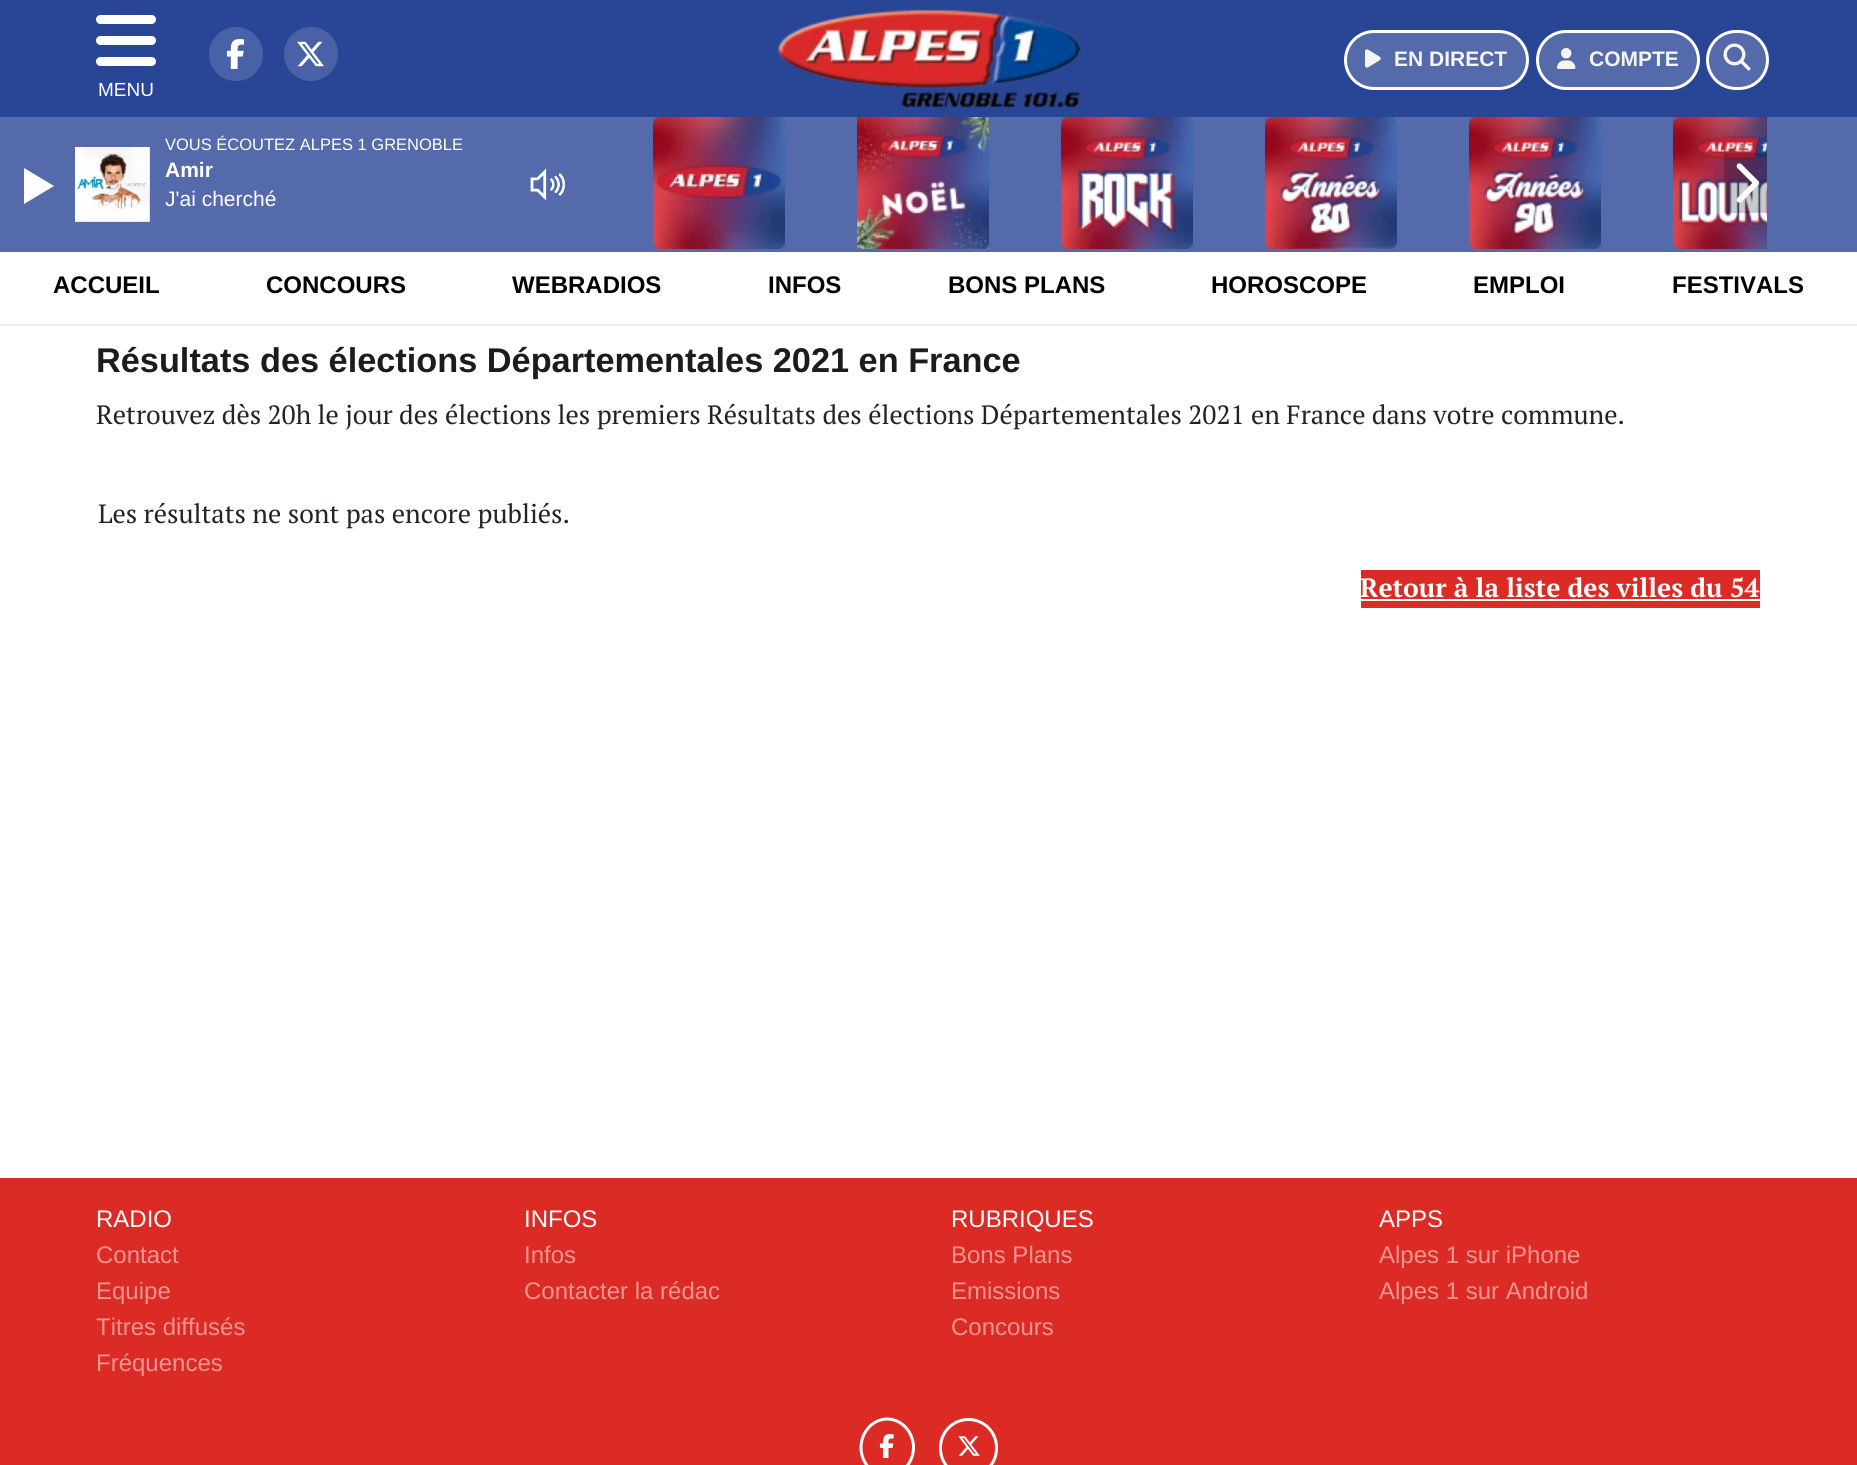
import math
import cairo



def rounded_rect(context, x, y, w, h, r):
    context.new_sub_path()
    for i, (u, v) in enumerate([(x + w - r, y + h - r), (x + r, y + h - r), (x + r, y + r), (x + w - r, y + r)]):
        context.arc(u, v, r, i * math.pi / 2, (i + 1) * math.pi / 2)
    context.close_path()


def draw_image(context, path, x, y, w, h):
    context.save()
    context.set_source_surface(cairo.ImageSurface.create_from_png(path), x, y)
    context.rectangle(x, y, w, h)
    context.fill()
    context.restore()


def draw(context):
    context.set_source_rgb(1, 1, 1)
    context.paint()
    context.set_source_rgb(41 / 255, 69 / 255, 150 / 255)
    context.rectangle(0, 0, 1857, 117)
    context.fill()
    context.set_source_rgb(73 / 255, 97 / 255, 166 / 255)
    context.arc(236, 54, 27, 0, 2 * math.pi)
    context.fill()
    draw_image(context, "images/1.png", 226, 39, 19, 30)
    context.arc(311, 54, 27, 0, 2 * math.pi)
    context.fill()
    draw_image(context, "images/2.png", 297, 41, 27, 26)
    draw_image(context, "images/3.png", 778, 9, 304, 99)
    context.set_source_rgb(84 / 255, 106 / 255, 171 / 255)
    rounded_rect(context, 1345.5, 31.5, 182, 57, 28.5)
    context.fill_preserve()
    context.set_source_rgb(1, 1, 1)
    context.set_line_width(3)
    context.stroke()
    draw_image(context, "images/4.png", 1365, 49, 16, 19)
    context.set_source_rgb(84 / 255, 106 / 255, 171 / 255)
    rounded_rect(context, 1537.5, 31.5, 161, 57, 28.5)
    context.fill_preserve()
    context.set_source_rgb(1, 1, 1)
    context.stroke()
    draw_image(context, "images/5.png", 1557, 48, 19, 21)
    context.set_source_rgb(84 / 255, 106 / 255, 171 / 255)
    rounded_rect(context, 1707.5, 31.5, 60, 57, 28.5)
    context.fill_preserve()
    context.set_source_rgb(1, 1, 1)
    context.stroke()
    draw_image(context, "images/6.png", 1723, 43, 28, 28)
    rounded_rect(context, 96, 15, 60, 9, 4.5)
    context.fill()
    rounded_rect(context, 96, 36, 60, 9, 4.5)
    context.fill()
    rounded_rect(context, 96, 57, 60, 9, 4.5)
    context.fill()
    context.set_source_rgb(238 / 255, 238 / 255, 238 / 255)
    context.rectangle(0, 324, 1857, 2)
    context.fill()
    context.set_source_rgb(220 / 255, 42 / 255, 37 / 255)
    context.rectangle(1361, 570, 399, 38)
    context.fill()
    context.set_source_rgb(1, 1, 1)
    context.rectangle(1361, 599, 399, 2)
    context.fill()
    context.set_source_rgb(220 / 255, 42 / 255, 37 / 255)
    context.rectangle(0, 1178, 1857, 287)
    context.fill()
    context.new_path()
    context.move_to(887, 1419)
    context.curve_to(901.5, 1419, 913.5, 1432, 913.5, 1447.5)
    context.curve_to(913.5, 1463, 901.5, 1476, 887, 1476)
    context.curve_to(873, 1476, 861, 1463, 861, 1447.5)
    context.curve_to(861, 1432, 873, 1419, 887, 1419)
    context.close_path()
    context.set_source_rgb(1, 1, 1)
    context.stroke()
    draw_image(context, "images/7.png", 879, 1434, 15, 24)
    rounded_rect(context, 940.5, 1419.5, 56, 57, 28)
    context.stroke()
    draw_image(context, "images/8.png", 958, 1436, 22, 20)
    context.set_source_rgb(84 / 255, 106 / 255, 171 / 255)
    context.rectangle(0, 117, 1857, 135)
    context.fill()
    draw_image(context, "images/9.png", 75, 147, 75, 75)
    context.set_source_rgb(1, 1, 1)
    context.new_path()
    context.move_to(24, 204)
    context.line_to(24, 168)
    context.line_to(54, 186)
    context.close_path()
    context.fill()
    draw_image(context, "images/10.png", 530, 168, 35, 33)
    draw_image(context, "images/11.png", 653, 117, 132, 132)
    draw_image(context, "images/12.png", 857, 117, 132, 132)
    draw_image(context, "images/13.png", 1061, 117, 132, 132)
    draw_image(context, "images/14.png", 1265, 117, 132, 132)
    draw_image(context, "images/15.png", 1469, 117, 132, 132)
    draw_image(context, "images/16.png", 1673, 117, 94, 132)
    context.set_source_rgba(0, 0, 0, 0.2)
    context.rectangle(1724, 153, 43, 60)
    context.fill()
    draw_image(context, "images/17.png", 1736, 163, 24, 40)
    context.select_font_face("Liberation Sans", cairo.FontSlant.NORMAL, cairo.FontWeight.BOLD)
    context.set_font_size(21)
    context.set_source_rgb(245 / 255, 245 / 255, 245 / 255)
    context.move_to(1394, 66)
    context.show_text("EN DIRECT")
    context.move_to(1589, 66)
    context.show_text("COMPTE")
    context.save()
    context.rectangle(96, 15, 60, 81)
    context.clip()
    context.select_font_face("Liberation Sans")
    context.set_font_size(19)
    context.set_source_rgb(1, 1, 1)
    context.move_to(98, 96)
    context.show_text("MENU")
    context.restore()
    context.set_font_size(24)
    context.set_source_rgb(0, 0, 0)
    context.move_to(53, 293)
    context.show_text("ACCUEIL")
    context.move_to(266, 293)
    context.show_text("CONCOURS")
    context.move_to(512, 293)
    context.show_text("WEBRADIOS")
    context.move_to(768, 293)
    context.show_text("INFOS")
    context.move_to(948, 293)
    context.show_text("BONS PLANS")
    context.move_to(1211, 293)
    context.show_text("HOROSCOPE")
    context.move_to(1473, 293)
    context.show_text("EMPLOI")
    context.move_to(1672, 293)
    context.show_text("FESTIVALS")
    context.set_font_size(34.3)
    context.set_source_rgb(28 / 255, 28 / 255, 28 / 255)
    context.move_to(96, 372)
    context.show_text("Résultats des élections Départementales 2021 en France")
    context.select_font_face("PT Serif")
    context.set_font_size(26.4)
    context.set_source_rgb(33 / 255, 37 / 255, 41 / 255)
    context.move_to(96, 424)
    context.show_text("Retrouvez dès 20h le jour des élections les premiers Résultats des élections Départementales 2021 en France dans votre commune.")
    context.move_to(98, 523)
    context.show_text("Les résultats ne sont pas encore publiés.")
    context.select_font_face("PT Serif", cairo.FontSlant.NORMAL, cairo.FontWeight.BOLD)
    context.set_source_rgb(1, 1, 1)
    context.move_to(1360, 597)
    context.show_text("Retour à la liste des villes du 54")
    context.select_font_face("Liberation Sans")
    context.set_font_size(24)
    context.move_to(96, 1227)
    context.show_text("RADIO")
    context.set_source_rgb(238 / 255, 149 / 255, 146 / 255)
    context.move_to(96, 1263)
    context.show_text("Contact")
    context.move_to(96, 1299)
    context.show_text("Equipe")
    context.move_to(96, 1335)
    context.show_text("Titres diffusés")
    context.move_to(96, 1371)
    context.show_text("Fréquences")
    context.set_source_rgb(1, 1, 1)
    context.move_to(524, 1227)
    context.show_text("INFOS")
    context.set_source_rgb(238 / 255, 149 / 255, 146 / 255)
    context.move_to(524, 1263)
    context.show_text("Infos")
    context.move_to(524, 1299)
    context.show_text("Contacter la rédac")
    context.set_source_rgb(1, 1, 1)
    context.move_to(951, 1227)
    context.show_text("RUBRIQUES")
    context.set_source_rgb(238 / 255, 149 / 255, 146 / 255)
    context.move_to(951, 1263)
    context.show_text("Bons Plans")
    context.move_to(951, 1299)
    context.show_text("Emissions")
    context.move_to(951, 1335)
    context.show_text("Concours")
    context.set_source_rgb(1, 1, 1)
    context.move_to(1379, 1227)
    context.show_text("APPS")
    context.set_source_rgb(238 / 255, 149 / 255, 146 / 255)
    context.move_to(1379, 1263)
    context.show_text("Alpes 1 sur iPhone")
    context.move_to(1379, 1299)
    context.show_text("Alpes 1 sur Android")
    context.set_font_size(16.5)
    context.set_source_rgb(1, 1, 1)
    context.move_to(165, 150)
    context.show_text("VOUS ÉCOUTEZ ALPES 1 GRENOBLE")
    context.select_font_face("Liberation Sans", cairo.FontSlant.NORMAL, cairo.FontWeight.BOLD)
    context.set_font_size(21)
    context.move_to(165, 177)
    context.show_text("Amir")
    context.select_font_face("Liberation Sans")
    context.move_to(165, 206)
    context.show_text("J'ai cherché")


surface = cairo.ImageSurface(cairo.Format.RGB24, 1857, 1465)
context = cairo.Context(surface)
options = cairo.FontOptions()
options.set_hint_metrics(cairo.HintMetrics.OFF)
options.set_hint_style(cairo.HintStyle.NONE)
context.set_font_options(options)
context.set_miter_limit(4)
draw(context)
surface.write_to_png("out.png")
